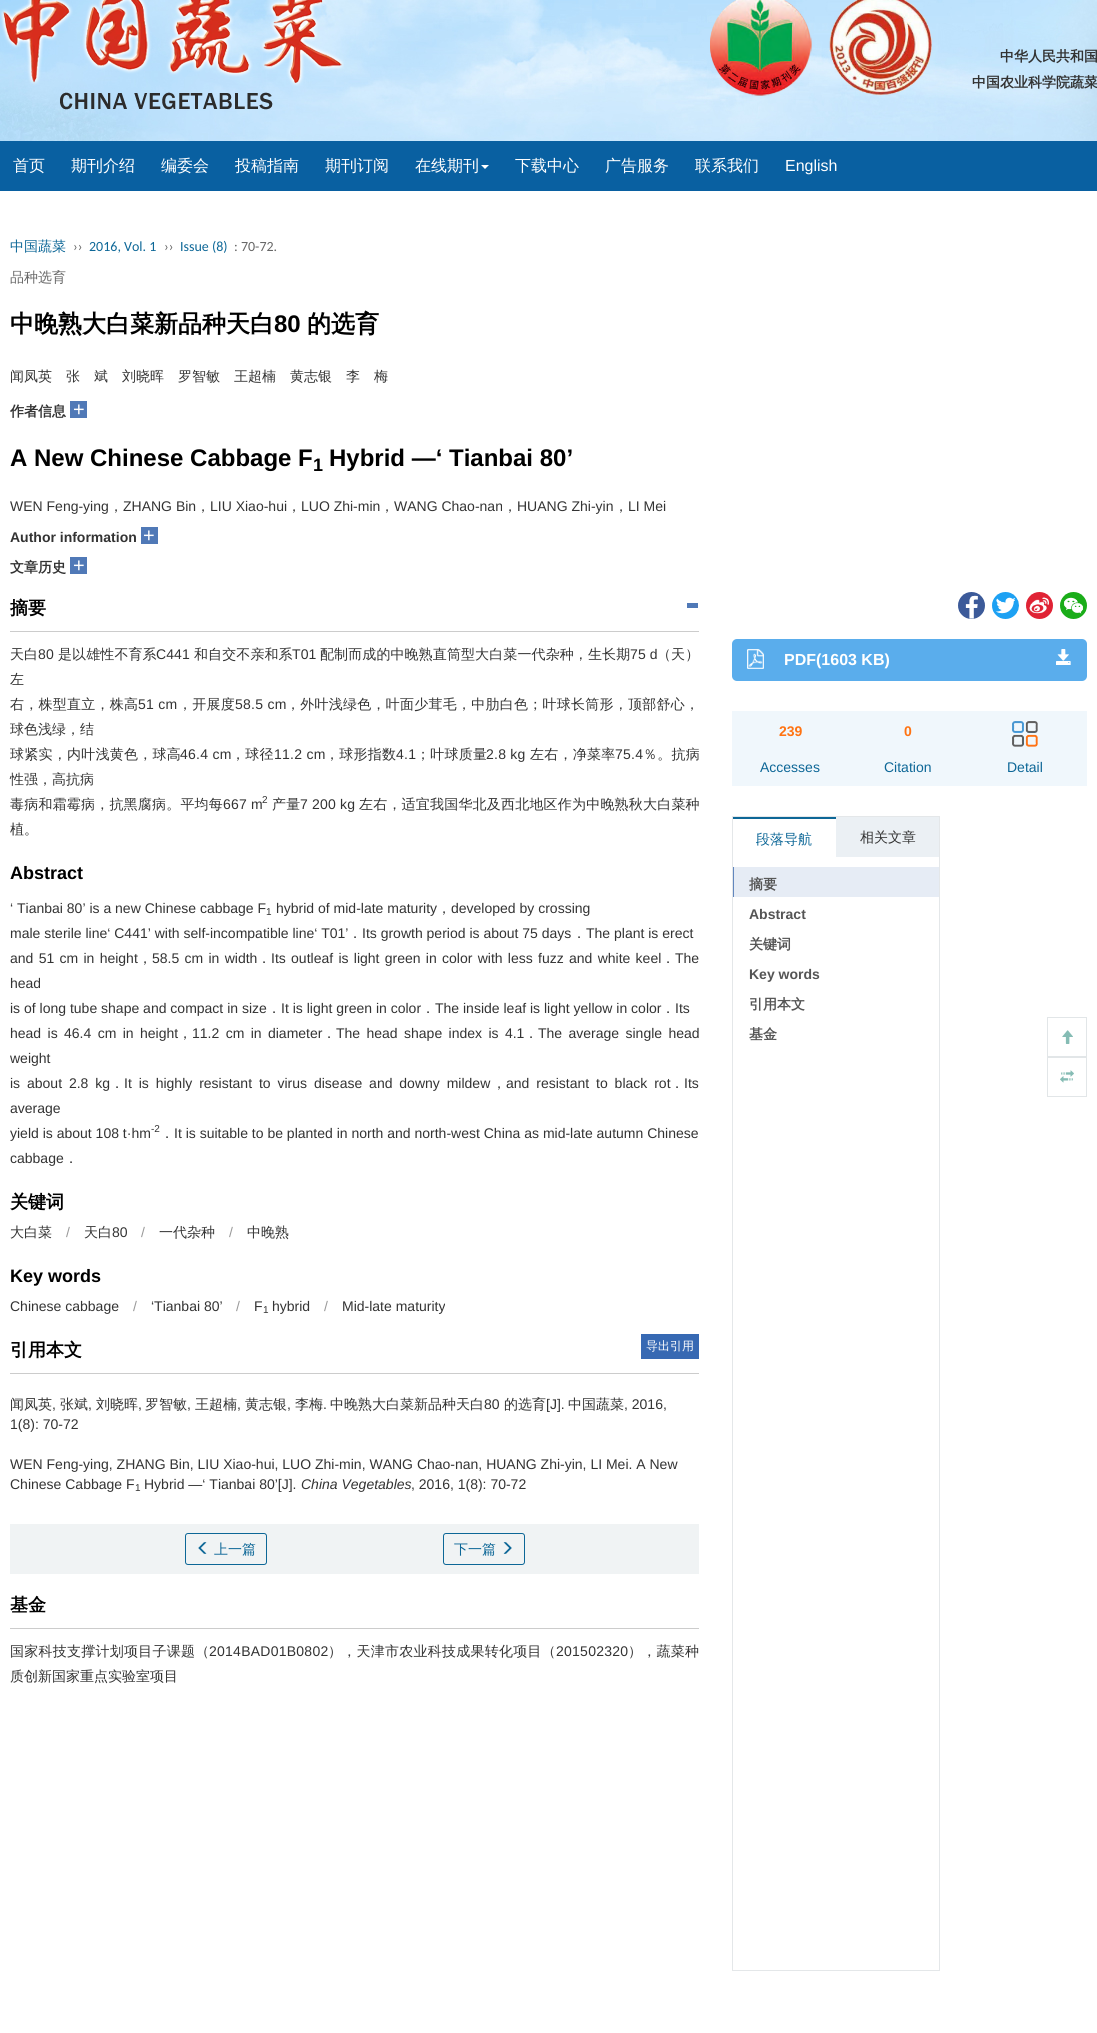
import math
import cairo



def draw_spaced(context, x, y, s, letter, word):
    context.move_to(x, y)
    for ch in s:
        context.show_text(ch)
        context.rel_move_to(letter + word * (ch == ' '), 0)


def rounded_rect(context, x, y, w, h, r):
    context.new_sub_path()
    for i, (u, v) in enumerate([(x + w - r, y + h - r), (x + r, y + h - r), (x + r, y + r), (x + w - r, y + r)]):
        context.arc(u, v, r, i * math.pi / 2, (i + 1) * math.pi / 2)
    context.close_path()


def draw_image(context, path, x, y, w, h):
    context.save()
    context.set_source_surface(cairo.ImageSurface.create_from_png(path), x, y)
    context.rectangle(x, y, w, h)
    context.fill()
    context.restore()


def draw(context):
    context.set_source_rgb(1, 1, 1)
    context.paint()
    draw_image(context, "images/1.png", 0, 0, 1097, 141)
    draw_image(context, "images/2.png", 0, 0, 344, 110)
    draw_image(context, "images/3.png", 710, 0, 102, 96)
    draw_image(context, "images/4.png", 829, 0, 103, 96)
    context.set_source_rgb(9 / 255, 96 / 255, 161 / 255)
    context.rectangle(0, 141, 1097, 50)
    context.fill()
    context.set_source_rgb(1, 1, 1)
    context.new_path()
    context.move_to(481, 165)
    context.line_to(489, 165)
    context.line_to(485, 169)
    context.close_path()
    context.fill()
    context.set_source_rgb(80 / 255, 121 / 255, 183 / 255)
    context.rectangle(70, 401, 17, 17)
    context.fill()
    context.rectangle(141, 527, 17, 17)
    context.fill()
    context.rectangle(70, 557, 17, 17)
    context.fill()
    context.set_source_rgb(204 / 255, 204 / 255, 204 / 255)
    context.rectangle(10, 631, 689, 1)
    context.fill()
    context.set_source_rgb(80 / 255, 121 / 255, 183 / 255)
    context.rectangle(687, 603, 11, 5)
    context.fill()
    context.set_source_rgb(204 / 255, 204 / 255, 204 / 255)
    context.rectangle(10, 1373, 689, 1)
    context.fill()
    context.set_source_rgb(55 / 255, 105 / 255, 179 / 255)
    context.rectangle(641, 1334, 58, 25)
    context.fill()
    context.set_source_rgb(240 / 255, 243 / 255, 244 / 255)
    context.rectangle(10, 1524, 689, 50)
    context.fill()
    rounded_rect(context, 185.5, 1533.5, 81, 31, 2.5)
    context.set_source_rgb(13 / 255, 103 / 255, 151 / 255)
    context.set_line_width(1)
    context.stroke()
    draw_image(context, "images/5.png", 198, 1542, 9, 12)
    rounded_rect(context, 443.5, 1533.5, 81, 31, 2.5)
    context.stroke()
    draw_image(context, "images/6.png", 503, 1542, 9, 12)
    context.set_source_rgb(204 / 255, 204 / 255, 204 / 255)
    context.rectangle(10, 1628, 689, 1)
    context.fill()
    draw_image(context, "images/7.png", 958, 592, 27, 27)
    draw_image(context, "images/8.png", 992, 592, 27, 27)
    draw_image(context, "images/9.png", 1026, 592, 27, 27)
    draw_image(context, "images/10.png", 1060, 592, 27, 27)
    context.set_source_rgb(90 / 255, 173 / 255, 236 / 255)
    rounded_rect(context, 732, 639, 355, 42, 5)
    context.fill()
    draw_image(context, "images/11.png", 747, 649, 17, 20)
    draw_image(context, "images/12.png", 1056, 649, 15, 16)
    context.set_source_rgb(240 / 255, 247 / 255, 252 / 255)
    context.rectangle(732, 711, 355, 75)
    context.fill()
    draw_image(context, "images/13.png", 1012, 721, 26, 26)
    context.rectangle(732.5, 816.5, 207, 1154)
    context.set_source_rgb(228 / 255, 231 / 255, 233 / 255)
    context.stroke()
    context.set_source_rgb(235 / 255, 240 / 255, 244 / 255)
    context.rectangle(836, 817, 103, 40)
    context.fill()
    context.set_source_rgb(13 / 255, 103 / 255, 151 / 255)
    context.rectangle(733, 817, 103, 2)
    context.fill()
    context.set_source_rgb(230 / 255, 236 / 255, 245 / 255)
    context.rectangle(734, 867, 205, 30)
    context.fill()
    context.set_source_rgb(98 / 255, 135 / 255, 190 / 255)
    context.rectangle(733, 867, 1, 30)
    context.fill()
    context.rectangle(1047.5, 1017.5, 39, 39)
    context.set_source_rgb(226 / 255, 230 / 255, 232 / 255)
    context.stroke()
    draw_image(context, "images/14.png", 1062, 1030, 11, 14)
    context.rectangle(1047.5, 1057.5, 39, 39)
    context.stroke()
    draw_image(context, "images/15.png", 1060, 1070, 14, 13)
    context.select_font_face("WenQuanYi Zen Hei", cairo.FontSlant.NORMAL, cairo.FontWeight.BOLD)
    context.set_font_size(14)
    context.set_source_rgb(51 / 255, 51 / 255, 51 / 255)
    context.move_to(1000, 61)
    context.show_text("中华人民共和国")
    context.move_to(972, 87)
    context.show_text("中国农业科学院蔬菜")
    context.select_font_face("WenQuanYi Zen Hei Medium")
    context.set_font_size(16)
    context.set_source_rgb(1, 1, 1)
    context.move_to(13, 171)
    context.show_text("首页")
    context.move_to(71, 171)
    context.show_text("期刊介绍")
    context.move_to(161, 171)
    context.show_text("编委会")
    context.move_to(235, 171)
    context.show_text("投稿指南")
    context.move_to(325, 171)
    context.show_text("期刊订阅")
    context.move_to(415, 171)
    context.show_text("在线期刊")
    context.move_to(515, 171)
    context.show_text("下载中心")
    context.move_to(605, 171)
    context.show_text("广告服务")
    context.move_to(695, 171)
    context.show_text("联系我们")
    context.select_font_face("Liberation Sans")
    context.move_to(785, 171)
    context.show_text("English")
    context.select_font_face("WenQuanYi Zen Hei Medium")
    context.set_font_size(14)
    context.set_source_rgb(13 / 255, 103 / 255, 151 / 255)
    context.move_to(10, 251)
    context.show_text("中国蔬菜")
    context.select_font_face("Carlito")
    context.set_source_rgb(102 / 255, 102 / 255, 102 / 255)
    context.move_to(73, 251)
    context.show_text("››")
    context.set_source_rgb(13 / 255, 103 / 255, 151 / 255)
    context.move_to(89, 251)
    context.show_text("2016, Vol. 1")
    context.set_source_rgb(102 / 255, 102 / 255, 102 / 255)
    context.move_to(164, 251)
    context.show_text("››")
    context.set_source_rgb(13 / 255, 103 / 255, 151 / 255)
    context.move_to(180, 251)
    context.show_text("Issue (8)")
    context.set_source_rgb(102 / 255, 102 / 255, 102 / 255)
    context.move_to(234, 251)
    context.show_text(": 70-72.")
    context.select_font_face("WenQuanYi Zen Hei Medium")
    context.move_to(10, 282)
    context.show_text("品种选育")
    context.select_font_face("WenQuanYi Zen Hei", cairo.FontSlant.NORMAL, cairo.FontWeight.BOLD)
    context.set_font_size(24)
    context.set_source_rgb(0, 0, 0)
    context.move_to(10, 332)
    context.show_text("中晚熟大白菜新品种天白")
    context.select_font_face("Liberation Sans", cairo.FontSlant.NORMAL, cairo.FontWeight.BOLD)
    context.move_to(274, 332)
    context.show_text("80")
    context.select_font_face("WenQuanYi Zen Hei", cairo.FontSlant.NORMAL, cairo.FontWeight.BOLD)
    context.move_to(307, 332)
    context.show_text("的选育")
    context.select_font_face("WenQuanYi Zen Hei Medium")
    context.set_font_size(14)
    context.set_source_rgb(51 / 255, 51 / 255, 51 / 255)
    context.move_to(10, 381)
    context.show_text("闻凤英　张　斌　刘晓晖　罗智敏　王超楠　黄志银　李　梅")
    context.select_font_face("WenQuanYi Zen Hei", cairo.FontSlant.NORMAL, cairo.FontWeight.BOLD)
    context.move_to(10, 416)
    context.show_text("作者信息")
    context.select_font_face("Liberation Sans")
    context.set_font_size(20)
    context.set_source_rgb(1, 1, 1)
    context.move_to(73, 416)
    context.show_text("+")
    context.select_font_face("Liberation Sans", cairo.FontSlant.NORMAL, cairo.FontWeight.BOLD)
    context.set_font_size(24)
    context.set_source_rgb(0, 0, 0)
    context.move_to(10, 466)
    context.show_text("A New Chinese Cabbage F")
    context.set_font_size(18)
    context.move_to(313, 471)
    context.show_text("1")
    context.set_font_size(24)
    context.move_to(329, 466)
    context.show_text("Hybrid —‘ Tianbai 80’")
    context.select_font_face("Liberation Sans")
    context.set_font_size(14)
    context.set_source_rgb(51 / 255, 51 / 255, 51 / 255)
    context.move_to(10, 511)
    context.show_text("WEN Feng-ying")
    context.select_font_face("WenQuanYi Zen Hei Medium")
    context.move_to(109, 511)
    context.show_text("，")
    context.select_font_face("Liberation Sans")
    context.move_to(123, 511)
    context.show_text("ZHANG Bin")
    context.select_font_face("WenQuanYi Zen Hei Medium")
    context.move_to(196, 511)
    context.show_text("，")
    context.select_font_face("Liberation Sans")
    context.move_to(210, 511)
    context.show_text("LIU Xiao-hui")
    context.select_font_face("WenQuanYi Zen Hei Medium")
    context.move_to(287, 511)
    context.show_text("，")
    context.select_font_face("Liberation Sans")
    context.move_to(301, 511)
    context.show_text("LUO Zhi-min")
    context.select_font_face("WenQuanYi Zen Hei Medium")
    context.move_to(380, 511)
    context.show_text("，")
    context.select_font_face("Liberation Sans")
    context.move_to(394, 511)
    context.show_text("WANG Chao-nan")
    context.select_font_face("WenQuanYi Zen Hei Medium")
    context.move_to(503, 511)
    context.show_text("，")
    context.select_font_face("Liberation Sans")
    context.move_to(517, 511)
    context.show_text("HUANG Zhi-yin")
    context.select_font_face("WenQuanYi Zen Hei Medium")
    context.move_to(614, 511)
    context.show_text("，")
    context.select_font_face("Liberation Sans")
    context.move_to(628, 511)
    context.show_text("LI Mei")
    context.select_font_face("Liberation Sans", cairo.FontSlant.NORMAL, cairo.FontWeight.BOLD)
    context.move_to(10, 542)
    context.show_text("Author information")
    context.select_font_face("Liberation Sans")
    context.set_font_size(20)
    context.set_source_rgb(1, 1, 1)
    context.move_to(143, 542)
    context.show_text("+")
    context.select_font_face("WenQuanYi Zen Hei", cairo.FontSlant.NORMAL, cairo.FontWeight.BOLD)
    context.set_font_size(14)
    context.set_source_rgb(51 / 255, 51 / 255, 51 / 255)
    context.move_to(10, 572)
    context.show_text("文章历史")
    context.select_font_face("Liberation Sans")
    context.set_font_size(20)
    context.set_source_rgb(1, 1, 1)
    context.move_to(73, 572)
    context.show_text("+")
    context.select_font_face("WenQuanYi Zen Hei", cairo.FontSlant.NORMAL, cairo.FontWeight.BOLD)
    context.set_font_size(18)
    context.set_source_rgb(0, 0, 0)
    context.move_to(10, 614)
    context.show_text("摘要")
    context.select_font_face("WenQuanYi Zen Hei Medium")
    context.set_font_size(14)
    context.set_source_rgb(51 / 255, 51 / 255, 51 / 255)
    draw_spaced(context, 10, 659, "天白", 0.1, 0)
    context.select_font_face("Liberation Sans")
    draw_spaced(context, 38, 659, "80", 0.1, 0)
    context.select_font_face("WenQuanYi Zen Hei Medium")
    draw_spaced(context, 58, 659, "是以雄性不育系", 0.1, 0)
    context.select_font_face("Liberation Sans")
    draw_spaced(context, 156, 659, "C441", 0.1, 0)
    context.select_font_face("WenQuanYi Zen Hei Medium")
    draw_spaced(context, 194, 659, "和自交不亲和系", 0.1, 0)
    context.select_font_face("Liberation Sans")
    draw_spaced(context, 292, 659, "T01", 0.1, 0)
    context.select_font_face("WenQuanYi Zen Hei Medium")
    draw_spaced(context, 320, 659, "配制而成的中晚熟直筒型大白菜一代杂种，生长期", 0.1, 0)
    context.select_font_face("Liberation Sans")
    draw_spaced(context, 630, 659, "75 d", 0.1, 0)
    context.select_font_face("WenQuanYi Zen Hei Medium")
    draw_spaced(context, 657, 659, "（天）", 0.1, 0)
    context.move_to(10, 684)
    context.show_text("左")
    draw_spaced(context, 10, 709, "右，株型直立，株高", 0.25, 0)
    context.select_font_face("Liberation Sans")
    draw_spaced(context, 138, 709, "51 cm", 0.25, 0)
    context.select_font_face("WenQuanYi Zen Hei Medium")
    draw_spaced(context, 178, 709, "，开展度", 0.25, 0)
    context.select_font_face("Liberation Sans")
    draw_spaced(context, 235, 709, "58.5 cm", 0.25, 0)
    context.select_font_face("WenQuanYi Zen Hei Medium")
    draw_spaced(context, 286, 709, "，外叶浅绿色，叶面少茸毛，中肋白色；叶球长筒形，顶部舒心，", 0.25, 0)
    context.move_to(10, 734)
    context.show_text("球色浅绿，结")
    draw_spaced(context, 10, 759, "球紧实，内叶浅黄色，球高", 0.25, 0)
    context.select_font_face("Liberation Sans")
    draw_spaced(context, 180, 759, "46.4 cm", 0.25, 0)
    context.select_font_face("WenQuanYi Zen Hei Medium")
    draw_spaced(context, 231, 759, "，球径", 0.25, 0)
    context.select_font_face("Liberation Sans")
    draw_spaced(context, 274, 759, "11.2 cm", 0.25, 0)
    context.select_font_face("WenQuanYi Zen Hei Medium")
    draw_spaced(context, 325, 759, "，球形指数", 0.25, 0)
    context.select_font_face("Liberation Sans")
    draw_spaced(context, 396, 759, "4.1", 0.25, 0)
    context.select_font_face("WenQuanYi Zen Hei Medium")
    draw_spaced(context, 416, 759, "；叶球质量", 0.25, 0)
    context.select_font_face("Liberation Sans")
    draw_spaced(context, 486, 759, "2.8 kg", 0.25, 0)
    context.select_font_face("WenQuanYi Zen Hei Medium")
    draw_spaced(context, 530, 759, "左右，净菜率", 0.25, 0)
    context.select_font_face("Liberation Sans")
    draw_spaced(context, 615, 759, "75.4", 0.25, 0)
    context.select_font_face("WenQuanYi Zen Hei Medium")
    draw_spaced(context, 643, 759, "％。抗病", 0.25, 0)
    context.move_to(10, 784)
    context.show_text("性强，高抗病")
    draw_spaced(context, 10, 809, "毒病和霜霉病，抗黑腐病。平均每", 0.2, 0)
    context.select_font_face("Liberation Sans")
    draw_spaced(context, 223, 809, "667 m", 0.2, 0)
    context.set_font_size(10)
    context.move_to(262, 803)
    context.show_text("2")
    context.select_font_face("WenQuanYi Zen Hei Medium")
    context.set_font_size(14)
    draw_spaced(context, 272, 809, "产量", 0.2, 0)
    context.select_font_face("Liberation Sans")
    draw_spaced(context, 300, 809, "7 200 kg", 0.2, 0)
    context.select_font_face("WenQuanYi Zen Hei Medium")
    draw_spaced(context, 359, 809, "左右，适宜我国华北及西北地区作为中晚熟秋大白菜种", 0.2, 0)
    context.move_to(10, 834)
    context.show_text("植。")
    context.select_font_face("Liberation Sans", cairo.FontSlant.NORMAL, cairo.FontWeight.BOLD)
    context.set_font_size(18)
    context.set_source_rgb(0, 0, 0)
    context.move_to(10, 879)
    context.show_text("Abstract")
    context.select_font_face("Liberation Sans")
    context.set_font_size(14)
    context.set_source_rgb(51 / 255, 51 / 255, 51 / 255)
    context.move_to(10, 913)
    context.show_text("‘ Tianbai 80’ is a new Chinese cabbage F")
    context.set_font_size(10)
    context.move_to(266, 915)
    context.show_text("1")
    context.set_font_size(14)
    context.move_to(276, 913)
    context.show_text("hybrid of mid-late maturity")
    context.select_font_face("WenQuanYi Zen Hei Medium")
    context.move_to(437, 913)
    context.show_text("，")
    context.select_font_face("Liberation Sans")
    context.move_to(451, 913)
    context.show_text("developed by crossing")
    context.move_to(10, 938)
    context.show_text("male sterile line‘ C441’ with self-incompatible line‘ T01’")
    context.select_font_face("WenQuanYi Zen Hei Medium")
    context.move_to(348, 938)
    context.show_text("．")
    context.select_font_face("Liberation Sans")
    context.move_to(362, 938)
    context.show_text("Its growth period is about 75 days")
    context.select_font_face("WenQuanYi Zen Hei Medium")
    context.move_to(572, 938)
    context.show_text("．")
    context.select_font_face("Liberation Sans")
    context.move_to(586, 938)
    context.show_text("The plant is erect")
    draw_spaced(context, 10, 963, "and 51 cm in height", 0, 1.4)
    context.select_font_face("WenQuanYi Zen Hei Medium")
    context.move_to(138, 963)
    context.show_text("，")
    context.select_font_face("Liberation Sans")
    draw_spaced(context, 152, 963, "58.5 cm in width", 0, 1.4)
    context.select_font_face("WenQuanYi Zen Hei Medium")
    context.move_to(257, 963)
    context.show_text("．")
    context.select_font_face("Liberation Sans")
    draw_spaced(context, 271, 963, "Its outleaf is light green in color with less fuzz and white keel", 0, 1.4)
    context.select_font_face("WenQuanYi Zen Hei Medium")
    context.move_to(661, 963)
    context.show_text("．")
    context.select_font_face("Liberation Sans")
    context.move_to(675, 963)
    context.show_text("The")
    context.move_to(10, 988)
    context.show_text("head")
    context.move_to(10, 1013)
    context.show_text("is of long tube shape and compact in size")
    context.select_font_face("WenQuanYi Zen Hei Medium")
    context.move_to(267, 1013)
    context.show_text("．")
    context.select_font_face("Liberation Sans")
    context.move_to(281, 1013)
    context.show_text("It is light green in color")
    context.select_font_face("WenQuanYi Zen Hei Medium")
    context.move_to(421, 1013)
    context.show_text("．")
    context.select_font_face("Liberation Sans")
    context.move_to(435, 1013)
    context.show_text("The inside leaf is light yellow in color")
    context.select_font_face("WenQuanYi Zen Hei Medium")
    context.move_to(661, 1013)
    context.show_text("．")
    context.select_font_face("Liberation Sans")
    context.move_to(675, 1013)
    context.show_text("Its")
    draw_spaced(context, 10, 1038, "head is 46.4 cm in height", 0, 2.5)
    context.select_font_face("WenQuanYi Zen Hei Medium")
    context.move_to(178, 1038)
    context.show_text("，")
    context.select_font_face("Liberation Sans")
    draw_spaced(context, 192, 1038, "11.2 cm in diameter", 0, 2.5)
    context.select_font_face("WenQuanYi Zen Hei Medium")
    context.move_to(322, 1038)
    context.show_text("．")
    context.select_font_face("Liberation Sans")
    draw_spaced(context, 336, 1038, "The head shape index is 4.1", 0, 2.5)
    context.select_font_face("WenQuanYi Zen Hei Medium")
    context.move_to(524, 1038)
    context.show_text("．")
    context.select_font_face("Liberation Sans")
    draw_spaced(context, 538, 1038, "The average single head", 0, 2.5)
    context.move_to(10, 1063)
    context.show_text("weight")
    draw_spaced(context, 10, 1088, "is about 2.8 kg", 0, 3)
    context.select_font_face("WenQuanYi Zen Hei Medium")
    context.move_to(110, 1088)
    context.show_text("．")
    context.select_font_face("Liberation Sans")
    draw_spaced(context, 124, 1088, "It is highly resistant to virus disease and downy mildew", 0, 3)
    context.select_font_face("WenQuanYi Zen Hei Medium")
    context.move_to(492, 1088)
    context.show_text("，")
    context.select_font_face("Liberation Sans")
    draw_spaced(context, 506, 1088, "and resistant to black rot", 0, 3)
    context.select_font_face("WenQuanYi Zen Hei Medium")
    context.move_to(670, 1088)
    context.show_text("．")
    context.select_font_face("Liberation Sans")
    context.move_to(684, 1088)
    context.show_text("Its")
    context.move_to(10, 1113)
    context.show_text("average")
    context.move_to(10, 1138)
    context.show_text("yield is about 108 t·hm")
    context.set_font_size(10)
    context.move_to(151, 1132)
    context.show_text("-2")
    context.select_font_face("WenQuanYi Zen Hei Medium")
    context.set_font_size(14)
    context.move_to(160, 1138)
    context.show_text("．")
    context.select_font_face("Liberation Sans")
    context.move_to(174, 1138)
    context.show_text("It is suitable to be planted in north and north-west China as mid-late autumn Chinese")
    context.move_to(10, 1163)
    context.show_text("cabbage")
    context.select_font_face("WenQuanYi Zen Hei Medium")
    context.move_to(64, 1163)
    context.show_text("．")
    context.select_font_face("WenQuanYi Zen Hei", cairo.FontSlant.NORMAL, cairo.FontWeight.BOLD)
    context.set_font_size(18)
    context.set_source_rgb(0, 0, 0)
    context.move_to(10, 1208)
    context.show_text("关键词")
    context.select_font_face("WenQuanYi Zen Hei Medium")
    context.set_font_size(14)
    context.set_source_rgb(51 / 255, 51 / 255, 51 / 255)
    context.move_to(10, 1237)
    context.show_text("大白菜")
    context.select_font_face("Liberation Sans")
    context.set_source_rgb(153 / 255, 153 / 255, 153 / 255)
    context.move_to(66, 1237)
    context.show_text("/")
    context.select_font_face("WenQuanYi Zen Hei Medium")
    context.set_source_rgb(51 / 255, 51 / 255, 51 / 255)
    context.move_to(84, 1237)
    context.show_text("天白")
    context.select_font_face("Liberation Sans")
    context.move_to(112, 1237)
    context.show_text("80")
    context.set_source_rgb(153 / 255, 153 / 255, 153 / 255)
    context.move_to(141, 1237)
    context.show_text("/")
    context.select_font_face("WenQuanYi Zen Hei Medium")
    context.set_source_rgb(51 / 255, 51 / 255, 51 / 255)
    context.move_to(159, 1237)
    context.show_text("一代杂种")
    context.select_font_face("Liberation Sans")
    context.set_source_rgb(153 / 255, 153 / 255, 153 / 255)
    context.move_to(229, 1237)
    context.show_text("/")
    context.select_font_face("WenQuanYi Zen Hei Medium")
    context.set_source_rgb(51 / 255, 51 / 255, 51 / 255)
    context.move_to(247, 1237)
    context.show_text("中晚熟")
    context.select_font_face("Liberation Sans", cairo.FontSlant.NORMAL, cairo.FontWeight.BOLD)
    context.set_font_size(18)
    context.set_source_rgb(0, 0, 0)
    context.move_to(10, 1282)
    context.show_text("Key words")
    context.select_font_face("Liberation Sans")
    context.set_font_size(14)
    context.set_source_rgb(51 / 255, 51 / 255, 51 / 255)
    context.move_to(10, 1311)
    context.show_text("Chinese cabbage")
    context.set_source_rgb(153 / 255, 153 / 255, 153 / 255)
    context.move_to(133, 1311)
    context.show_text("/")
    context.set_source_rgb(51 / 255, 51 / 255, 51 / 255)
    context.move_to(151, 1311)
    context.show_text("‘Tianbai 80’")
    context.set_source_rgb(153 / 255, 153 / 255, 153 / 255)
    context.move_to(236, 1311)
    context.show_text("/")
    context.set_source_rgb(51 / 255, 51 / 255, 51 / 255)
    context.move_to(254, 1311)
    context.show_text("F")
    context.set_font_size(10)
    context.move_to(263, 1313)
    context.show_text("1")
    context.set_font_size(14)
    context.move_to(272, 1311)
    context.show_text("hybrid")
    context.set_source_rgb(153 / 255, 153 / 255, 153 / 255)
    context.move_to(324, 1311)
    context.show_text("/")
    context.set_source_rgb(51 / 255, 51 / 255, 51 / 255)
    context.move_to(342, 1311)
    context.show_text("Mid-late maturity")
    context.select_font_face("WenQuanYi Zen Hei", cairo.FontSlant.NORMAL, cairo.FontWeight.BOLD)
    context.set_font_size(18)
    context.set_source_rgb(0, 0, 0)
    context.move_to(10, 1356)
    context.show_text("引用本文")
    context.select_font_face("WenQuanYi Zen Hei Medium")
    context.set_font_size(12)
    context.set_source_rgb(1, 1, 1)
    context.move_to(646, 1350)
    context.show_text("导出引用")
    context.set_font_size(14)
    context.set_source_rgb(51 / 255, 51 / 255, 51 / 255)
    context.move_to(10, 1409)
    context.show_text("闻凤英")
    context.select_font_face("Liberation Sans")
    context.move_to(52, 1409)
    context.show_text(",")
    context.select_font_face("WenQuanYi Zen Hei Medium")
    context.move_to(60, 1409)
    context.show_text("张斌")
    context.select_font_face("Liberation Sans")
    context.move_to(88, 1409)
    context.show_text(",")
    context.select_font_face("WenQuanYi Zen Hei Medium")
    context.move_to(96, 1409)
    context.show_text("刘晓晖")
    context.select_font_face("Liberation Sans")
    context.move_to(138, 1409)
    context.show_text(",")
    context.select_font_face("WenQuanYi Zen Hei Medium")
    context.move_to(145, 1409)
    context.show_text("罗智敏")
    context.select_font_face("Liberation Sans")
    context.move_to(187, 1409)
    context.show_text(",")
    context.select_font_face("WenQuanYi Zen Hei Medium")
    context.move_to(195, 1409)
    context.show_text("王超楠")
    context.select_font_face("Liberation Sans")
    context.move_to(237, 1409)
    context.show_text(",")
    context.select_font_face("WenQuanYi Zen Hei Medium")
    context.move_to(245, 1409)
    context.show_text("黄志银")
    context.select_font_face("Liberation Sans")
    context.move_to(287, 1409)
    context.show_text(",")
    context.select_font_face("WenQuanYi Zen Hei Medium")
    context.move_to(295, 1409)
    context.show_text("李梅")
    context.select_font_face("Liberation Sans")
    context.move_to(323, 1409)
    context.show_text(".")
    context.select_font_face("WenQuanYi Zen Hei Medium")
    context.move_to(330, 1409)
    context.show_text("中晚熟大白菜新品种天白")
    context.select_font_face("Liberation Sans")
    context.move_to(484, 1409)
    context.show_text("80")
    context.select_font_face("WenQuanYi Zen Hei Medium")
    context.move_to(504, 1409)
    context.show_text("的选育")
    context.select_font_face("Liberation Sans")
    context.move_to(546, 1409)
    context.show_text("[J].")
    context.select_font_face("WenQuanYi Zen Hei Medium")
    context.move_to(568, 1409)
    context.show_text("中国蔬菜")
    context.select_font_face("Liberation Sans")
    context.move_to(624, 1409)
    context.show_text(", 2016,")
    context.move_to(10, 1429)
    context.show_text("1(8): 70-72")
    context.move_to(10, 1469)
    context.show_text("WEN Feng-ying, ZHANG Bin, LIU Xiao-hui, LUO Zhi-min, WANG Chao-nan, HUANG Zhi-yin, LI Mei. A New")
    context.move_to(10, 1489)
    context.show_text("Chinese Cabbage F")
    context.set_font_size(10)
    context.move_to(135, 1491)
    context.show_text("1")
    context.set_font_size(14)
    context.move_to(144, 1489)
    context.show_text("Hybrid —‘ Tianbai 80’[J].")
    context.select_font_face("Liberation Sans", cairo.FontSlant.ITALIC)
    context.move_to(301, 1489)
    context.show_text("China Vegetables")
    context.select_font_face("Liberation Sans")
    context.move_to(411, 1489)
    context.show_text(", 2016, 1(8): 70-72")
    context.select_font_face("WenQuanYi Zen Hei Medium")
    context.set_source_rgb(13 / 255, 103 / 255, 151 / 255)
    context.move_to(214, 1554)
    context.show_text("上一篇")
    context.move_to(454, 1554)
    context.show_text("下一篇")
    context.select_font_face("WenQuanYi Zen Hei", cairo.FontSlant.NORMAL, cairo.FontWeight.BOLD)
    context.set_font_size(18)
    context.set_source_rgb(0, 0, 0)
    context.move_to(10, 1611)
    context.show_text("基金")
    context.select_font_face("WenQuanYi Zen Hei Medium")
    context.set_font_size(14)
    context.set_source_rgb(51 / 255, 51 / 255, 51 / 255)
    draw_spaced(context, 10, 1656, "国家科技支撑计划项目子课题（", 0.25, 0)
    context.select_font_face("Liberation Sans")
    draw_spaced(context, 209, 1656, "2014BAD01B0802", 0.25, 0)
    context.select_font_face("WenQuanYi Zen Hei Medium")
    draw_spaced(context, 328, 1656, "），天津市农业科技成果转化项目（", 0.25, 0)
    context.select_font_face("Liberation Sans")
    draw_spaced(context, 556, 1656, "201502320", 0.25, 0)
    context.select_font_face("WenQuanYi Zen Hei Medium")
    draw_spaced(context, 628, 1656, "），蔬菜种", 0.25, 0)
    context.move_to(10, 1681)
    context.show_text("质创新国家重点实验室项目")
    context.select_font_face("Liberation Sans", cairo.FontSlant.NORMAL, cairo.FontWeight.BOLD)
    context.set_font_size(16)
    context.set_source_rgb(1, 1, 1)
    context.move_to(784, 665)
    context.show_text("PDF(1603 KB)")
    context.set_font_size(14)
    context.set_source_rgb(1, 115 / 255, 18 / 255)
    context.move_to(779, 736)
    context.show_text("239")
    context.select_font_face("Liberation Sans")
    context.set_source_rgb(13 / 255, 103 / 255, 151 / 255)
    context.move_to(760, 772)
    context.show_text("Accesses")
    context.select_font_face("Liberation Sans", cairo.FontSlant.NORMAL, cairo.FontWeight.BOLD)
    context.set_source_rgb(1, 115 / 255, 18 / 255)
    context.move_to(904, 736)
    context.show_text("0")
    context.select_font_face("Liberation Sans")
    context.set_source_rgb(13 / 255, 103 / 255, 151 / 255)
    context.move_to(884, 772)
    context.show_text("Citation")
    context.move_to(1007, 772)
    context.show_text("Detail")
    context.select_font_face("WenQuanYi Zen Hei Medium")
    context.move_to(756, 844)
    context.show_text("段落导航")
    context.set_source_rgb(51 / 255, 51 / 255, 51 / 255)
    context.move_to(860, 842)
    context.show_text("相关文章")
    context.select_font_face("WenQuanYi Zen Hei", cairo.FontSlant.NORMAL, cairo.FontWeight.BOLD)
    context.set_source_rgb(85 / 255, 85 / 255, 85 / 255)
    context.move_to(749, 889)
    context.show_text("摘要")
    context.select_font_face("Liberation Sans", cairo.FontSlant.NORMAL, cairo.FontWeight.BOLD)
    context.move_to(749, 919)
    context.show_text("Abstract")
    context.select_font_face("WenQuanYi Zen Hei", cairo.FontSlant.NORMAL, cairo.FontWeight.BOLD)
    context.move_to(749, 949)
    context.show_text("关键词")
    context.select_font_face("Liberation Sans", cairo.FontSlant.NORMAL, cairo.FontWeight.BOLD)
    context.move_to(749, 979)
    context.show_text("Key words")
    context.select_font_face("WenQuanYi Zen Hei", cairo.FontSlant.NORMAL, cairo.FontWeight.BOLD)
    context.move_to(749, 1009)
    context.show_text("引用本文")
    context.move_to(749, 1039)
    context.show_text("基金")


surface = cairo.ImageSurface(cairo.Format.RGB24, 1097, 2033)
context = cairo.Context(surface)
options = cairo.FontOptions()
options.set_hint_metrics(cairo.HintMetrics.OFF)
options.set_hint_style(cairo.HintStyle.NONE)
context.set_font_options(options)
context.set_miter_limit(4)
draw(context)
surface.write_to_png("out.png")
